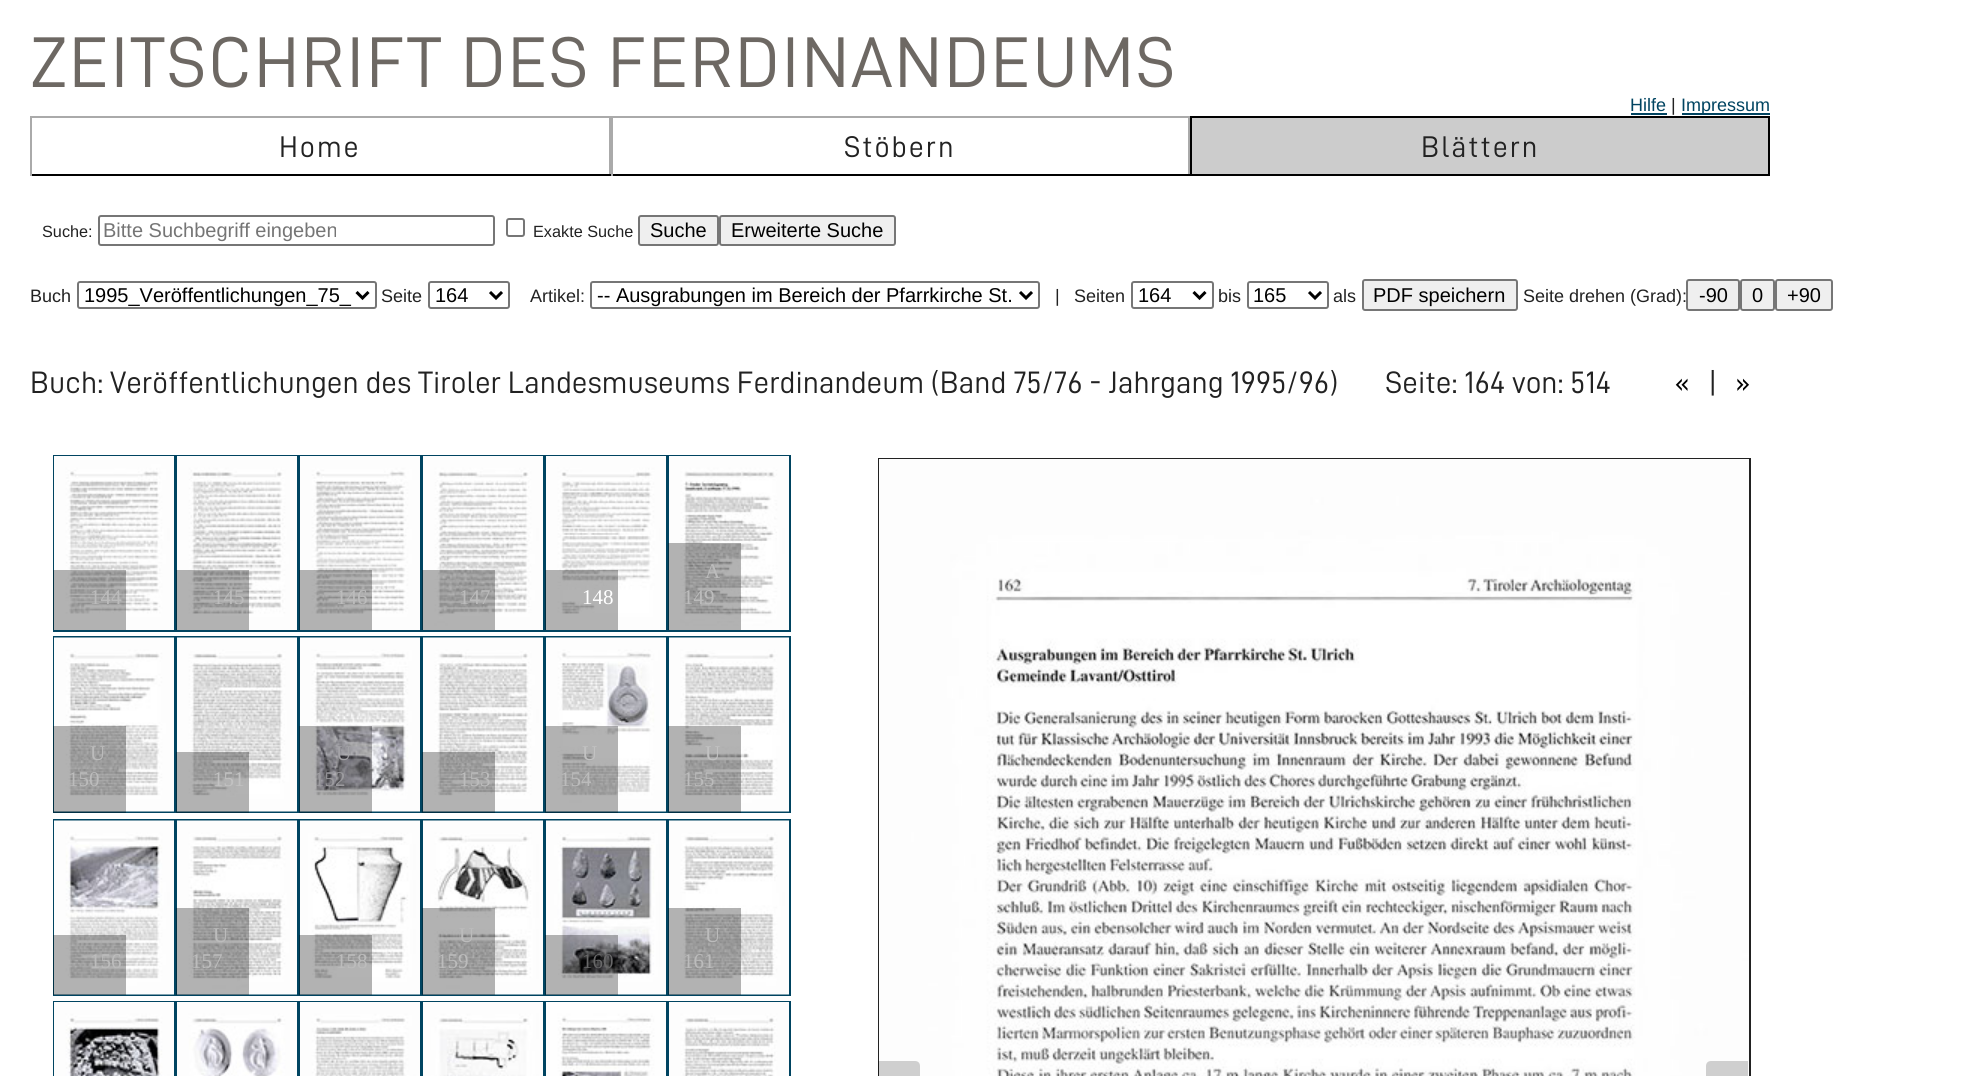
import math
import cairo



def draw_spaced(context, x, y, s, letter, word):
    context.move_to(x, y)
    for ch in s:
        context.show_text(ch)
        context.rel_move_to(letter + word * (ch == ' '), 0)


def rounded_rect(context, x, y, w, h, r):
    context.new_sub_path()
    for i, (u, v) in enumerate([(x + w - r, y + h - r), (x + r, y + h - r), (x + r, y + r), (x + w - r, y + r)]):
        context.arc(u, v, r, i * math.pi / 2, (i + 1) * math.pi / 2)
    context.close_path()


def draw_image(context, path, x, y, w, h):
    context.save()
    context.set_source_surface(cairo.ImageSurface.create_from_png(path), x, y)
    context.rectangle(x, y, w, h)
    context.fill()
    context.restore()


def draw(context):
    context.set_source_rgb(1, 1, 1)
    context.paint()
    context.set_source_rgb(0, 68 / 255, 97 / 255)
    context.rectangle(1631, 113, 36, 2)
    context.fill()
    context.rectangle(1682, 113, 88, 2)
    context.fill()
    context.set_source_rgb(170 / 255, 170 / 255, 170 / 255)
    context.rectangle(30, 116, 1160, 2)
    context.fill()
    context.rectangle(609, 116, 2, 60)
    context.fill()
    context.set_source_rgb(0, 0, 0)
    context.rectangle(30, 174, 581, 2)
    context.fill()
    context.set_source_rgb(170 / 255, 170 / 255, 170 / 255)
    context.rectangle(30, 116, 2, 60)
    context.fill()
    context.rectangle(1188, 116, 2, 60)
    context.fill()
    context.set_source_rgb(0, 0, 0)
    context.rectangle(611, 174, 579, 2)
    context.fill()
    context.set_source_rgb(170 / 255, 170 / 255, 170 / 255)
    context.rectangle(611, 116, 2, 60)
    context.fill()
    context.set_source_rgb(204 / 255, 204 / 255, 204 / 255)
    context.rectangle(1191, 117, 578, 58)
    context.fill_preserve()
    context.set_source_rgb(0, 0, 0)
    context.stroke()
    rounded_rect(context, 99, 216, 395, 29, 2)
    context.set_source_rgb(118 / 255, 118 / 255, 118 / 255)
    context.stroke()
    rounded_rect(context, 507, 219, 17, 17, 2)
    context.stroke()
    context.set_source_rgb(239 / 255, 239 / 255, 239 / 255)
    rounded_rect(context, 639, 216, 79, 29, 2)
    context.fill_preserve()
    context.set_source_rgb(118 / 255, 118 / 255, 118 / 255)
    context.stroke()
    context.set_source_rgb(239 / 255, 239 / 255, 239 / 255)
    rounded_rect(context, 720, 216, 175, 29, 2)
    context.fill_preserve()
    context.set_source_rgb(118 / 255, 118 / 255, 118 / 255)
    context.stroke()
    rounded_rect(context, 78, 282, 298, 26, 2)
    context.stroke()
    context.new_path()
    context.move_to(356.5, 292)
    context.line_to(362.5, 298)
    context.line_to(368.5, 292)
    context.set_source_rgb(0, 0, 0)
    context.set_line_width(3)
    context.stroke()
    rounded_rect(context, 429, 282, 80, 26, 2)
    context.set_source_rgb(118 / 255, 118 / 255, 118 / 255)
    context.set_line_width(2)
    context.stroke()
    context.new_path()
    context.move_to(490, 292)
    context.line_to(496, 298)
    context.line_to(502, 292)
    context.set_source_rgb(0, 0, 0)
    context.set_line_width(3)
    context.stroke()
    rounded_rect(context, 591, 282, 448, 26, 2)
    context.set_source_rgb(118 / 255, 118 / 255, 118 / 255)
    context.set_line_width(2)
    context.stroke()
    context.new_path()
    context.move_to(1020, 292)
    context.line_to(1026, 298)
    context.line_to(1032, 292)
    context.set_source_rgb(0, 0, 0)
    context.set_line_width(3)
    context.stroke()
    rounded_rect(context, 1132, 282, 81, 26, 2)
    context.set_source_rgb(118 / 255, 118 / 255, 118 / 255)
    context.set_line_width(2)
    context.stroke()
    context.new_path()
    context.move_to(1193.5, 292)
    context.line_to(1199.5, 298)
    context.line_to(1205.5, 292)
    context.set_source_rgb(0, 0, 0)
    context.set_line_width(3)
    context.stroke()
    rounded_rect(context, 1248, 282, 80, 26, 2)
    context.set_source_rgb(118 / 255, 118 / 255, 118 / 255)
    context.set_line_width(2)
    context.stroke()
    context.new_path()
    context.move_to(1309, 292)
    context.line_to(1315, 298)
    context.line_to(1321, 292)
    context.set_source_rgb(0, 0, 0)
    context.set_line_width(3)
    context.stroke()
    context.set_source_rgb(239 / 255, 239 / 255, 239 / 255)
    rounded_rect(context, 1363, 280, 154, 30, 2)
    context.fill_preserve()
    context.set_source_rgb(118 / 255, 118 / 255, 118 / 255)
    context.set_line_width(2)
    context.stroke()
    context.set_source_rgb(239 / 255, 239 / 255, 239 / 255)
    rounded_rect(context, 1687, 280, 52, 30, 2)
    context.fill_preserve()
    context.set_source_rgb(118 / 255, 118 / 255, 118 / 255)
    context.stroke()
    context.set_source_rgb(239 / 255, 239 / 255, 239 / 255)
    rounded_rect(context, 1741, 280, 33, 30, 2)
    context.fill_preserve()
    context.set_source_rgb(118 / 255, 118 / 255, 118 / 255)
    context.stroke()
    context.set_source_rgb(239 / 255, 239 / 255, 239 / 255)
    rounded_rect(context, 1776, 280, 56, 30, 2)
    context.fill_preserve()
    context.set_source_rgb(118 / 255, 118 / 255, 118 / 255)
    context.stroke()
    context.rectangle(54, 456, 121, 175)
    context.set_source_rgb(0, 68 / 255, 97 / 255)
    context.stroke()
    draw_image(context, "images/1.png", 54, 456, 120, 174)
    context.set_source_rgba(0, 0, 0, 0.3)
    context.rectangle(53, 570, 73, 60)
    context.fill()
    context.rectangle(177, 456, 121, 175)
    context.set_source_rgb(0, 68 / 255, 97 / 255)
    context.stroke()
    draw_image(context, "images/2.png", 177, 456, 120, 174)
    context.set_source_rgba(0, 0, 0, 0.3)
    context.rectangle(176, 570, 73, 60)
    context.fill()
    context.rectangle(300, 456, 121, 175)
    context.set_source_rgb(0, 68 / 255, 97 / 255)
    context.stroke()
    draw_image(context, "images/3.png", 300, 456, 120, 174)
    context.set_source_rgba(0, 0, 0, 0.3)
    context.rectangle(299, 570, 73, 60)
    context.fill()
    context.rectangle(423, 456, 121, 175)
    context.set_source_rgb(0, 68 / 255, 97 / 255)
    context.stroke()
    draw_image(context, "images/4.png", 423, 456, 120, 174)
    context.set_source_rgba(0, 0, 0, 0.3)
    context.rectangle(422, 570, 73, 60)
    context.fill()
    context.rectangle(546, 456, 121, 175)
    context.set_source_rgb(0, 68 / 255, 97 / 255)
    context.stroke()
    draw_image(context, "images/5.png", 546, 456, 120, 174)
    context.set_source_rgba(0, 0, 0, 0.3)
    context.rectangle(545, 570, 73, 60)
    context.fill()
    context.rectangle(669, 456, 121, 175)
    context.set_source_rgb(0, 68 / 255, 97 / 255)
    context.stroke()
    draw_image(context, "images/6.png", 669, 456, 120, 174)
    context.set_source_rgba(0, 0, 0, 0.3)
    context.rectangle(668, 543, 73, 87)
    context.fill()
    context.rectangle(54, 637, 121, 175)
    context.set_source_rgb(0, 68 / 255, 97 / 255)
    context.stroke()
    draw_image(context, "images/7.png", 54, 637, 120, 175)
    context.set_source_rgba(0, 0, 0, 0.3)
    context.rectangle(53, 726, 73, 87)
    context.fill()
    context.rectangle(177, 637, 121, 175)
    context.set_source_rgb(0, 68 / 255, 97 / 255)
    context.stroke()
    draw_image(context, "images/8.png", 177, 637, 120, 175)
    context.set_source_rgba(0, 0, 0, 0.3)
    context.rectangle(176, 752, 73, 61)
    context.fill()
    context.rectangle(300, 637, 121, 175)
    context.set_source_rgb(0, 68 / 255, 97 / 255)
    context.stroke()
    draw_image(context, "images/9.png", 300, 637, 120, 175)
    context.set_source_rgba(0, 0, 0, 0.3)
    context.rectangle(299, 726, 73, 87)
    context.fill()
    context.rectangle(423, 637, 121, 175)
    context.set_source_rgb(0, 68 / 255, 97 / 255)
    context.stroke()
    draw_image(context, "images/10.png", 423, 637, 120, 175)
    context.set_source_rgba(0, 0, 0, 0.3)
    context.rectangle(422, 752, 73, 61)
    context.fill()
    context.rectangle(546, 637, 121, 175)
    context.set_source_rgb(0, 68 / 255, 97 / 255)
    context.stroke()
    draw_image(context, "images/11.png", 546, 637, 120, 175)
    context.set_source_rgba(0, 0, 0, 0.3)
    context.rectangle(545, 726, 73, 87)
    context.fill()
    context.rectangle(669, 637, 121, 175)
    context.set_source_rgb(0, 68 / 255, 97 / 255)
    context.stroke()
    draw_image(context, "images/12.png", 669, 637, 120, 175)
    context.set_source_rgba(0, 0, 0, 0.3)
    context.rectangle(668, 726, 73, 87)
    context.fill()
    context.rectangle(54, 820, 121, 175)
    context.set_source_rgb(0, 68 / 255, 97 / 255)
    context.stroke()
    draw_image(context, "images/13.png", 54, 820, 120, 175)
    context.set_source_rgba(0, 0, 0, 0.3)
    context.rectangle(53, 935, 73, 60)
    context.fill()
    context.rectangle(177, 820, 121, 175)
    context.set_source_rgb(0, 68 / 255, 97 / 255)
    context.stroke()
    draw_image(context, "images/14.png", 177, 820, 120, 175)
    context.set_source_rgba(0, 0, 0, 0.3)
    context.rectangle(176, 908, 73, 87)
    context.fill()
    context.rectangle(300, 820, 121, 175)
    context.set_source_rgb(0, 68 / 255, 97 / 255)
    context.stroke()
    draw_image(context, "images/15.png", 300, 820, 120, 175)
    context.set_source_rgba(0, 0, 0, 0.3)
    context.rectangle(299, 935, 73, 60)
    context.fill()
    context.rectangle(423, 820, 121, 175)
    context.set_source_rgb(0, 68 / 255, 97 / 255)
    context.stroke()
    draw_image(context, "images/16.png", 423, 820, 120, 175)
    context.set_source_rgba(0, 0, 0, 0.3)
    context.rectangle(422, 908, 73, 87)
    context.fill()
    context.rectangle(546, 820, 121, 175)
    context.set_source_rgb(0, 68 / 255, 97 / 255)
    context.stroke()
    draw_image(context, "images/17.png", 546, 820, 120, 175)
    context.set_source_rgba(0, 0, 0, 0.3)
    context.rectangle(545, 935, 73, 60)
    context.fill()
    context.rectangle(669, 820, 121, 175)
    context.set_source_rgb(0, 68 / 255, 97 / 255)
    context.stroke()
    draw_image(context, "images/18.png", 669, 820, 120, 175)
    context.set_source_rgba(0, 0, 0, 0.3)
    context.rectangle(668, 908, 73, 87)
    context.fill()
    context.rectangle(54, 1002, 121, 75)
    context.set_source_rgb(0, 68 / 255, 97 / 255)
    context.stroke()
    draw_image(context, "images/19.png", 54, 1002, 120, 74)
    context.rectangle(177, 1002, 121, 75)
    context.stroke()
    draw_image(context, "images/20.png", 177, 1002, 120, 74)
    context.rectangle(300, 1002, 121, 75)
    context.stroke()
    draw_image(context, "images/21.png", 300, 1002, 120, 74)
    context.rectangle(423, 1002, 121, 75)
    context.stroke()
    draw_image(context, "images/22.png", 423, 1002, 120, 74)
    context.rectangle(546, 1002, 121, 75)
    context.stroke()
    draw_image(context, "images/23.png", 546, 1002, 120, 74)
    context.rectangle(669, 1002, 121, 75)
    context.stroke()
    draw_image(context, "images/24.png", 669, 1002, 120, 74)
    context.rectangle(879, 459, 871, 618)
    context.set_source_rgb(34 / 255, 34 / 255, 34 / 255)
    context.stroke()
    draw_image(context, "images/25.png", 879, 459, 870, 617)
    context.set_source_rgba(0, 0, 0, 0.18)
    context.new_path()
    context.move_to(878, 1061)
    context.line_to(915, 1061)
    context.curve_to(918, 1061, 920, 1063, 920, 1066)
    context.line_to(920, 1076)
    context.curve_to(920, 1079, 918, 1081, 915, 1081)
    context.line_to(878, 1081)
    context.close_path()
    context.fill()
    context.set_source_rgb(207 / 255, 207 / 255, 207 / 255)
    context.new_path()
    context.move_to(1711, 1061)
    context.line_to(1748, 1061)
    context.line_to(1748, 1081)
    context.line_to(1711, 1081)
    context.curve_to(1708, 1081, 1706, 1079, 1706, 1076)
    context.line_to(1706, 1066)
    context.curve_to(1706, 1063, 1708, 1061, 1711, 1061)
    context.close_path()
    context.fill()
    context.select_font_face("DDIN")
    context.set_font_size(72)
    context.set_source_rgb(109 / 255, 104 / 255, 99 / 255)
    draw_spaced(context, 30, 87, "ZEITSCHRIFT DES FERDINANDEUMS", 1.95, 0)
    context.select_font_face("Liberation Sans")
    context.set_font_size(18)
    context.set_source_rgb(0, 68 / 255, 97 / 255)
    context.move_to(1630, 111)
    context.show_text("Hilfe")
    context.set_source_rgb(34 / 255, 34 / 255, 34 / 255)
    context.move_to(1671, 111)
    context.show_text("|")
    context.set_source_rgb(0, 68 / 255, 97 / 255)
    context.move_to(1681, 111)
    context.show_text("Impressum")
    context.select_font_face("DDIN")
    context.set_font_size(30)
    context.set_source_rgb(34 / 255, 34 / 255, 34 / 255)
    draw_spaced(context, 279, 157, "Home", 1.95, 0)
    draw_spaced(context, 844, 157, "Stöbern", 1.95, 0)
    draw_spaced(context, 1421, 157, "Blättern", 1.95, 0)
    context.select_font_face("Liberation Sans")
    context.set_font_size(16.25)
    context.move_to(42, 237)
    context.show_text("Suche:")
    context.set_font_size(20)
    context.set_source_rgb(117 / 255, 117 / 255, 117 / 255)
    context.move_to(103, 237)
    context.show_text("Bitte Suchbegriff eingeben")
    context.set_font_size(16.25)
    context.set_source_rgb(34 / 255, 34 / 255, 34 / 255)
    context.move_to(533, 237)
    context.show_text("Exakte Suche")
    context.set_font_size(20)
    context.set_source_rgb(0, 0, 0)
    context.move_to(650, 237)
    context.show_text("Suche")
    context.move_to(731, 237)
    context.show_text("Erweiterte Suche")
    context.set_font_size(18)
    context.set_source_rgb(34 / 255, 34 / 255, 34 / 255)
    context.move_to(30, 302)
    context.show_text("Buch")
    context.set_font_size(20)
    context.set_source_rgb(0, 0, 0)
    context.move_to(84, 302)
    context.show_text("1995_Veröffentlichungen_75_")
    context.set_font_size(18)
    context.set_source_rgb(34 / 255, 34 / 255, 34 / 255)
    context.move_to(381, 302)
    context.show_text("Seite")
    context.set_font_size(20)
    context.set_source_rgb(0, 0, 0)
    context.move_to(435, 302)
    context.show_text("164")
    context.set_font_size(18)
    context.set_source_rgb(34 / 255, 34 / 255, 34 / 255)
    context.move_to(530, 302)
    context.show_text("Artikel:")
    context.set_font_size(20)
    context.set_source_rgb(0, 0, 0)
    context.move_to(597, 302)
    context.show_text("-- Ausgrabungen im Bereich der Pfarrkirche St.")
    context.set_font_size(18)
    context.set_source_rgb(34 / 255, 34 / 255, 34 / 255)
    context.move_to(1055, 302)
    context.show_text("|")
    context.move_to(1074, 302)
    context.show_text("Seiten")
    context.set_font_size(20)
    context.set_source_rgb(0, 0, 0)
    context.move_to(1138, 302)
    context.show_text("164")
    context.set_font_size(18)
    context.set_source_rgb(34 / 255, 34 / 255, 34 / 255)
    context.move_to(1218, 302)
    context.show_text("bis")
    context.set_font_size(20)
    context.set_source_rgb(0, 0, 0)
    context.move_to(1253, 302)
    context.show_text("165")
    context.set_font_size(18)
    context.set_source_rgb(34 / 255, 34 / 255, 34 / 255)
    context.move_to(1333, 302)
    context.show_text("als")
    context.set_font_size(20)
    context.set_source_rgb(0, 0, 0)
    context.move_to(1373, 302)
    context.show_text("PDF speichern")
    context.set_font_size(18)
    context.set_source_rgb(34 / 255, 34 / 255, 34 / 255)
    context.move_to(1523, 302)
    context.show_text("Seite drehen (Grad):")
    context.set_font_size(20)
    context.set_source_rgb(0, 0, 0)
    context.move_to(1699, 302)
    context.show_text("-90")
    context.move_to(1752, 302)
    context.show_text("0")
    context.move_to(1787, 302)
    context.show_text("+90")
    context.select_font_face("DDIN")
    context.set_font_size(31.1)
    context.set_source_rgb(34 / 255, 34 / 255, 34 / 255)
    context.move_to(30, 393)
    context.show_text("Buch: Veröffentlichungen des Tiroler Landesmuseums Ferdinandeum (Band 75/76 - Jahrgang 1995/96)       Seite: 164 von: 514")
    context.set_source_rgb(0, 0, 0)
    context.move_to(1675, 393)
    context.show_text("«")
    context.set_source_rgb(34 / 255, 34 / 255, 34 / 255)
    context.move_to(1708, 393)
    context.show_text("|")
    context.set_source_rgb(0, 0, 0)
    context.move_to(1735, 393)
    context.show_text("»")
    context.select_font_face("Liberation Serif")
    context.set_font_size(21)
    context.set_source_rgb(188 / 255, 188 / 255, 188 / 255)
    context.move_to(90, 604)
    context.show_text("144")
    context.move_to(213, 604)
    context.show_text("145")
    context.move_to(336, 604)
    context.show_text("146")
    context.move_to(459, 604)
    context.show_text("147")
    context.set_source_rgb(1, 1, 1)
    context.move_to(582, 604)
    context.show_text("148")
    context.set_source_rgb(188 / 255, 188 / 255, 188 / 255)
    context.move_to(705, 578)
    context.show_text("A")
    context.move_to(683, 604)
    context.show_text("149")
    context.move_to(90, 760)
    context.show_text("U")
    context.move_to(68, 786)
    context.show_text("150")
    context.set_source_rgb(194 / 255, 194 / 255, 194 / 255)
    context.move_to(213, 786)
    context.show_text("151")
    context.set_source_rgb(164 / 255, 163 / 255, 167 / 255)
    context.move_to(336, 760)
    context.show_text("U")
    context.set_source_rgb(156 / 255, 155 / 255, 159 / 255)
    context.move_to(314, 786)
    context.show_text("152")
    context.set_source_rgb(188 / 255, 188 / 255, 188 / 255)
    context.move_to(459, 786)
    context.show_text("153")
    context.set_source_rgb(194 / 255, 194 / 255, 194 / 255)
    context.move_to(582, 760)
    context.show_text("U")
    context.set_source_rgb(188 / 255, 188 / 255, 188 / 255)
    context.move_to(560, 786)
    context.show_text("154")
    context.set_source_rgb(194 / 255, 194 / 255, 194 / 255)
    context.move_to(705, 760)
    context.show_text("U")
    context.set_source_rgb(188 / 255, 188 / 255, 188 / 255)
    context.move_to(683, 786)
    context.show_text("155")
    context.move_to(90, 968)
    context.show_text("156")
    context.move_to(213, 942)
    context.show_text("U")
    context.move_to(191, 968)
    context.show_text("157")
    context.move_to(336, 968)
    context.show_text("158")
    context.move_to(459, 942)
    context.show_text("U")
    context.move_to(437, 968)
    context.show_text("159")
    context.set_source_rgb(103 / 255, 103 / 255, 104 / 255)
    context.move_to(582, 968)
    context.show_text("160")
    context.set_source_rgb(188 / 255, 188 / 255, 188 / 255)
    context.move_to(705, 942)
    context.show_text("U")
    context.move_to(683, 968)
    context.show_text("161")


surface = cairo.ImageSurface(cairo.Format.RGB24, 1983, 1076)
context = cairo.Context(surface)
options = cairo.FontOptions()
options.set_hint_metrics(cairo.HintMetrics.OFF)
options.set_hint_style(cairo.HintStyle.NONE)
context.set_font_options(options)
context.set_miter_limit(4)
draw(context)
surface.write_to_png("out.png")
